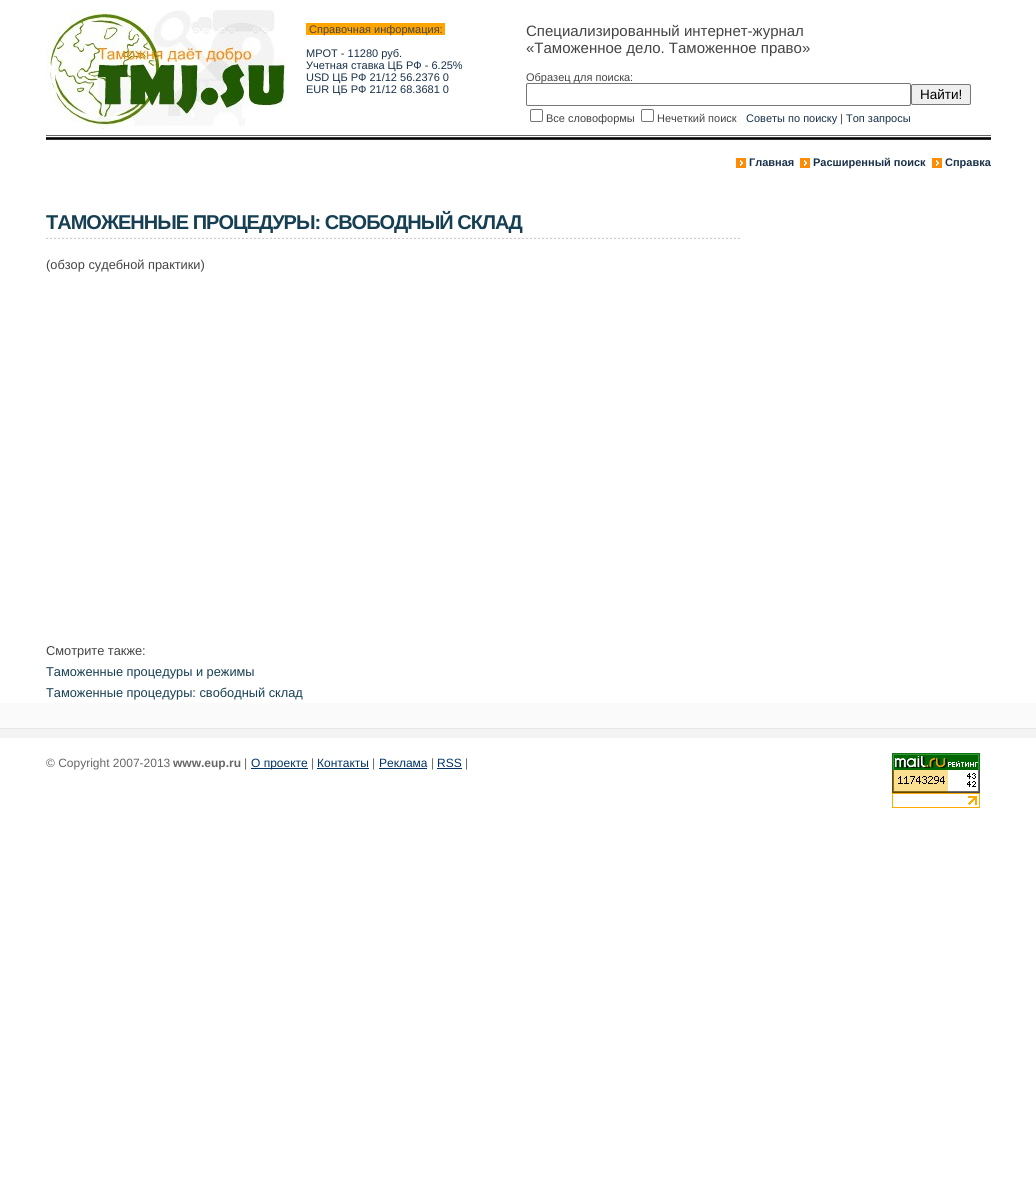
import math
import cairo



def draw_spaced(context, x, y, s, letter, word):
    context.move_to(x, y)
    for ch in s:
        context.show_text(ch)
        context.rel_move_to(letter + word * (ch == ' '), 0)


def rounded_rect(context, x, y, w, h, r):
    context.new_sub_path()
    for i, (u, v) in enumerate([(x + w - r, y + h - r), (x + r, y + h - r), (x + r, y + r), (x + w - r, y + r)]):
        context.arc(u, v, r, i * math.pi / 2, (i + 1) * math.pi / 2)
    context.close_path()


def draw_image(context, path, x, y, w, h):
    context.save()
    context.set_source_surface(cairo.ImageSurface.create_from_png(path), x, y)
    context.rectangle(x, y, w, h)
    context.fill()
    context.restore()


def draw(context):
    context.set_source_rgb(1, 1, 1)
    context.paint()
    draw_image(context, "images/1.png", 46, 10, 240, 120)
    context.set_source_rgb(1, 165 / 255, 0)
    context.rectangle(306, 23, 139, 12)
    context.fill()
    context.set_source_rgb(239 / 255, 239 / 255, 239 / 255)
    rounded_rect(context, 911.5, 84.5, 59, 20, 1.5)
    context.fill_preserve()
    context.set_source_rgb(118 / 255, 118 / 255, 118 / 255)
    context.set_line_width(1)
    context.stroke()
    rounded_rect(context, 530.5, 109.5, 12, 12, 1.5)
    context.stroke()
    rounded_rect(context, 641.5, 109.5, 12, 12, 1.5)
    context.stroke()
    draw_image(context, "images/2.png", 46, 135, 945, 5)
    draw_image(context, "images/3.png", 736, 158, 10, 10)
    draw_image(context, "images/3.png", 800, 158, 10, 10)
    draw_image(context, "images/3.png", 932, 158, 10, 10)
    draw_image(context, "images/4.png", 46, 237, 695, 2)
    draw_image(context, "images/5.png", 0, 703, 1036, 35)
    context.set_source_rgb(0, 51 / 255, 102 / 255)
    context.rectangle(251, 768, 57, 1)
    context.fill()
    context.rectangle(317, 768, 52, 1)
    context.fill()
    context.rectangle(379, 768, 48, 1)
    context.fill()
    context.rectangle(437, 768, 25, 1)
    context.fill()
    draw_image(context, "images/6.png", 892, 753, 88, 40)
    draw_image(context, "images/7.png", 892, 793, 88, 15)
    context.select_font_face("Liberation Sans")
    context.set_font_size(11)
    context.set_source_rgb(68 / 255, 68 / 255, 68 / 255)
    context.move_to(309, 33)
    context.show_text("Справочная информация:")
    context.set_source_rgb(24 / 255, 48 / 255, 72 / 255)
    context.move_to(306, 57)
    context.show_text("МРОТ - 11280 руб.")
    context.move_to(306, 69)
    context.show_text("Учетная ставка ЦБ РФ - 6.25%")
    context.move_to(306, 81)
    context.show_text("USD ЦБ РФ 21/12 56.2376 0")
    context.move_to(306, 93)
    context.show_text("EUR ЦБ РФ 21/12 68.3681 0")
    context.set_font_size(15)
    context.set_source_rgb(68 / 255, 68 / 255, 68 / 255)
    context.move_to(526, 36)
    context.show_text("Специализированный интернет-журнал")
    context.move_to(526, 53)
    context.show_text("«Таможенное дело. Таможенное право»")
    context.set_font_size(11)
    context.move_to(526, 81)
    context.show_text("Образец для поиска:")
    context.set_source_rgb(1, 1, 1)
    rounded_rect(context, 526.5, 83.5, 384, 22, 1.5)
    context.fill_preserve()
    context.set_source_rgb(118 / 255, 118 / 255, 118 / 255)
    context.stroke()
    context.set_font_size(13.5)
    context.set_source_rgb(0, 0, 0)
    context.move_to(920, 99)
    context.show_text("Найти!")
    context.set_font_size(11)
    context.set_source_rgb(68 / 255, 68 / 255, 68 / 255)
    context.move_to(546, 122)
    context.show_text("Все словоформы")
    context.move_to(657, 122)
    context.show_text("Нечеткий поиск")
    context.set_source_rgb(24 / 255, 48 / 255, 72 / 255)
    context.move_to(746, 122)
    context.show_text("Советы по поиску")
    context.set_source_rgb(68 / 255, 68 / 255, 68 / 255)
    context.move_to(840, 122)
    context.show_text("|")
    context.set_source_rgb(24 / 255, 48 / 255, 72 / 255)
    context.move_to(846, 122)
    context.show_text("Топ запросы")
    context.select_font_face("Liberation Sans", cairo.FontSlant.NORMAL, cairo.FontWeight.BOLD)
    context.move_to(749, 166)
    context.show_text("Главная")
    context.move_to(813, 166)
    context.show_text("Расширенный поиск")
    context.move_to(945, 166)
    context.show_text("Справка")
    context.set_font_size(20)
    context.set_source_rgb(22 / 255, 63 / 255, 83 / 255)
    draw_spaced(context, 46, 229, "ТАМОЖЕННЫЕ ПРОЦЕДУРЫ: СВОБОДНЫЙ СКЛАД", -1, 0)
    context.select_font_face("Liberation Sans")
    context.set_font_size(12.8)
    context.set_source_rgb(68 / 255, 68 / 255, 68 / 255)
    context.move_to(46, 269)
    context.show_text("(обзор судебной практики)")
    context.move_to(46, 655)
    context.show_text("Смотрите также:")
    context.set_source_rgb(22 / 255, 63 / 255, 83 / 255)
    context.move_to(46, 676)
    context.show_text("Таможенные процедуры и режимы")
    context.move_to(46, 697)
    context.show_text("Таможенные процедуры: свободный склад")
    context.set_font_size(12)
    context.set_source_rgb(102 / 255, 102 / 255, 102 / 255)
    context.move_to(46, 767)
    context.show_text("© Copyright 2007-2013")
    context.select_font_face("Liberation Sans", cairo.FontSlant.NORMAL, cairo.FontWeight.BOLD)
    context.move_to(173, 767)
    context.show_text("www.eup.ru")
    context.select_font_face("Liberation Sans")
    context.move_to(244, 767)
    context.show_text("|")
    context.set_source_rgb(0, 51 / 255, 102 / 255)
    context.move_to(251, 767)
    context.show_text("О проекте")
    context.set_source_rgb(102 / 255, 102 / 255, 102 / 255)
    context.move_to(311, 767)
    context.show_text("|")
    context.set_source_rgb(0, 51 / 255, 102 / 255)
    context.move_to(317, 767)
    context.show_text("Контакты")
    context.set_source_rgb(102 / 255, 102 / 255, 102 / 255)
    context.move_to(372, 767)
    context.show_text("|")
    context.set_source_rgb(0, 51 / 255, 102 / 255)
    context.move_to(379, 767)
    context.show_text("Реклама")
    context.set_source_rgb(102 / 255, 102 / 255, 102 / 255)
    context.move_to(431, 767)
    context.show_text("|")
    context.set_source_rgb(0, 51 / 255, 102 / 255)
    context.move_to(437, 767)
    context.show_text("RSS")
    context.set_source_rgb(102 / 255, 102 / 255, 102 / 255)
    context.move_to(465, 767)
    context.show_text("|")


surface = cairo.ImageSurface(cairo.Format.RGB24, 1036, 1191)
context = cairo.Context(surface)
options = cairo.FontOptions()
options.set_hint_metrics(cairo.HintMetrics.OFF)
options.set_hint_style(cairo.HintStyle.NONE)
context.set_font_options(options)
context.set_miter_limit(4)
draw(context)
surface.write_to_png("out.png")
